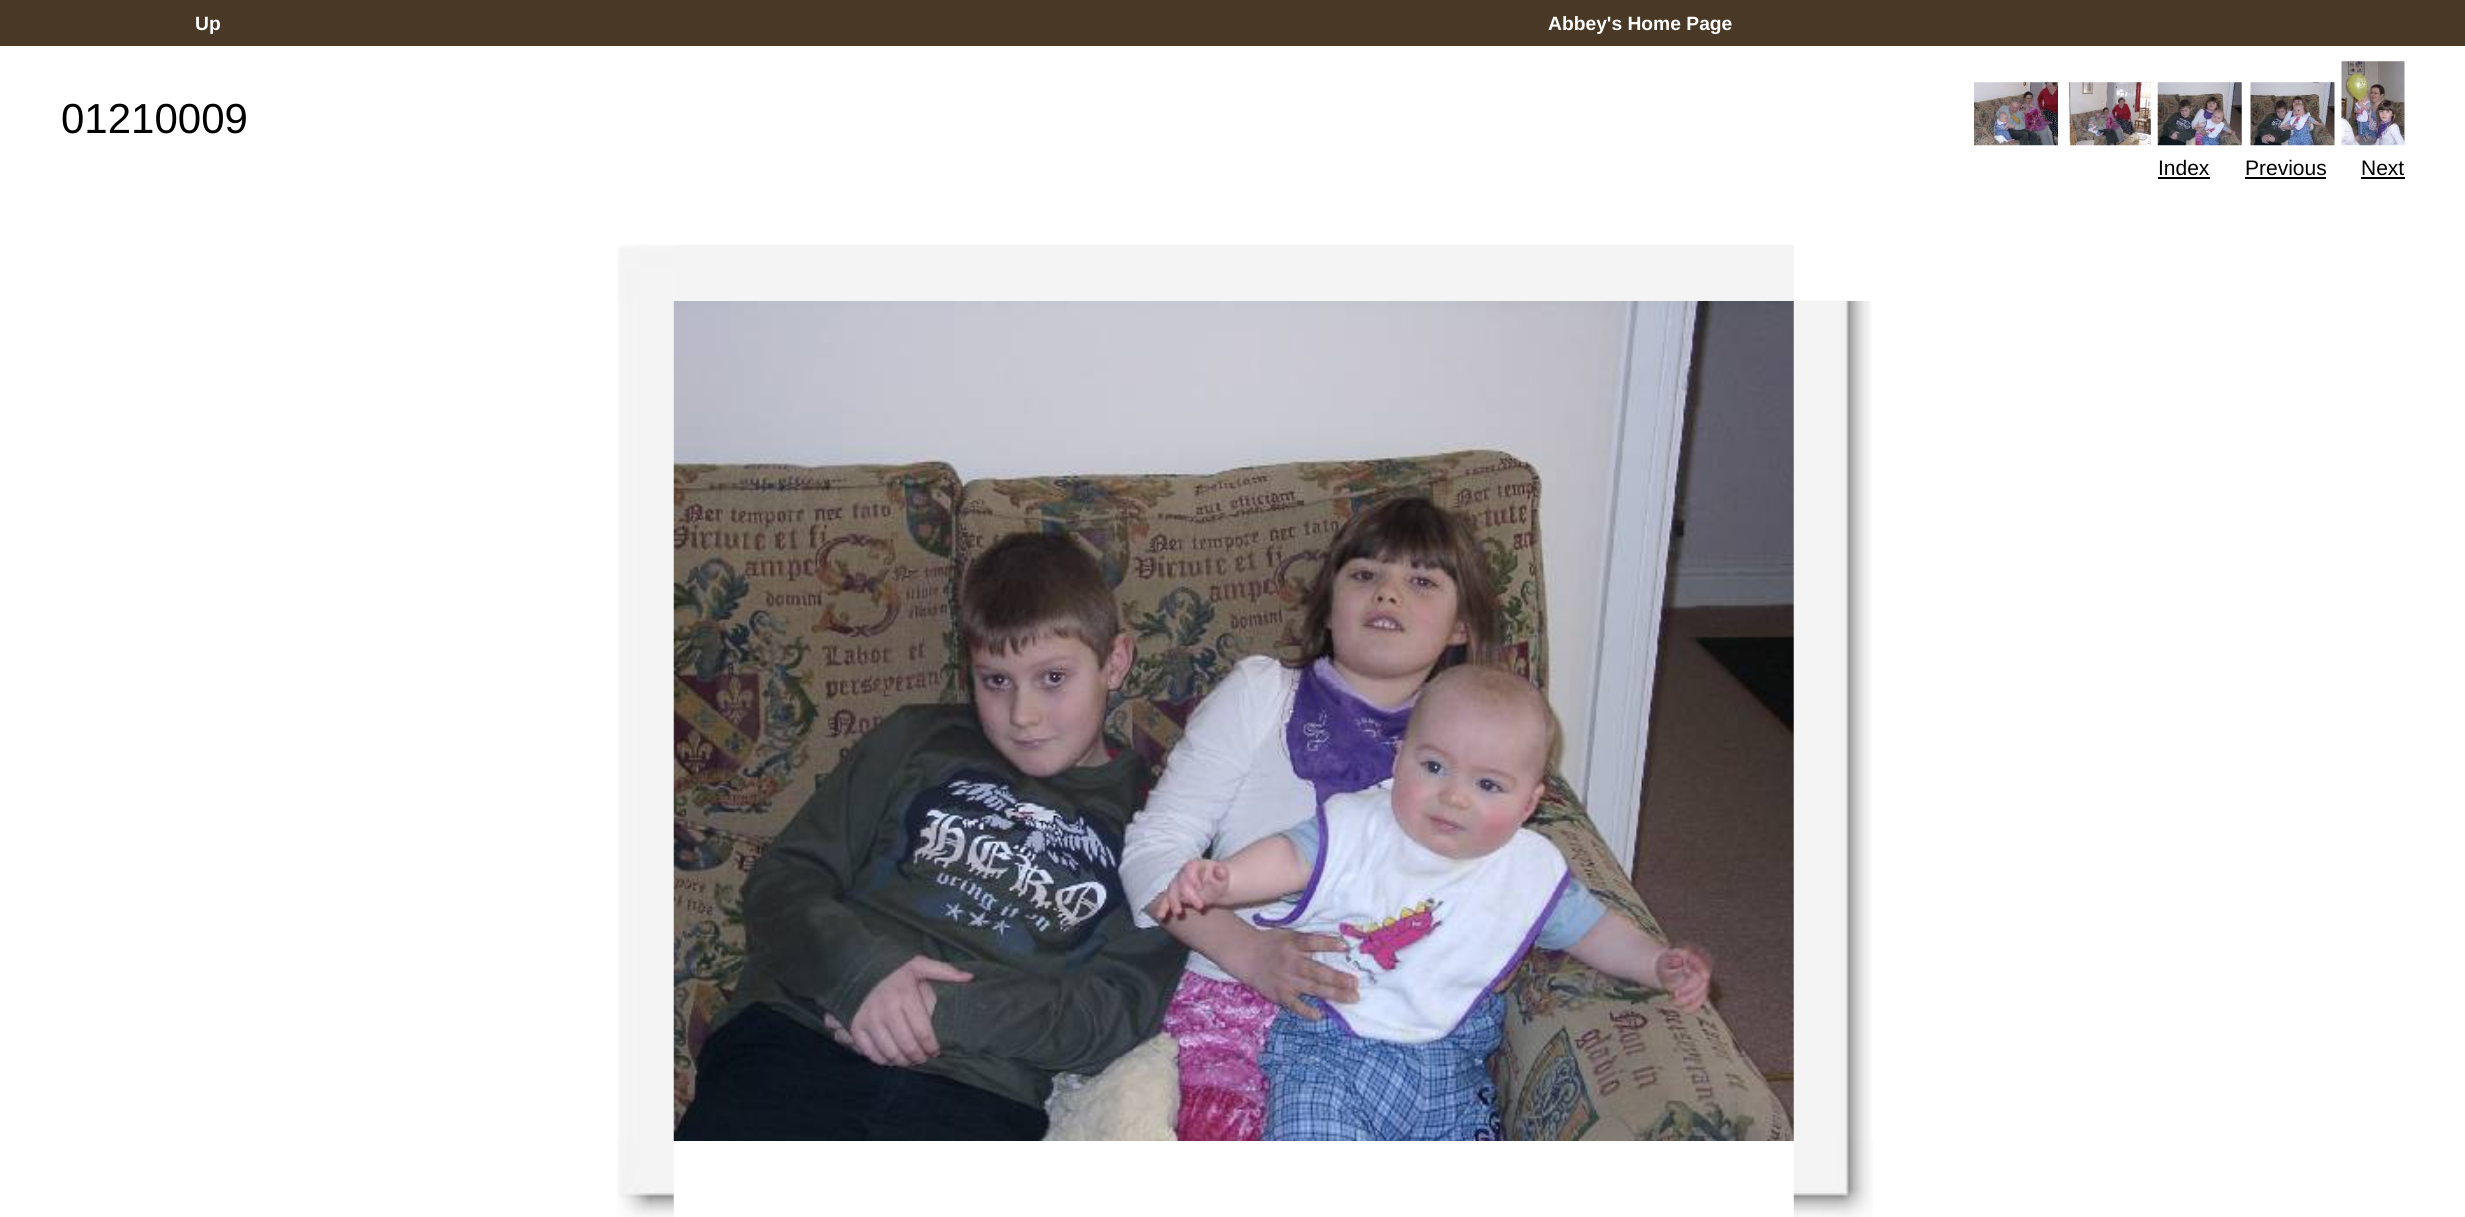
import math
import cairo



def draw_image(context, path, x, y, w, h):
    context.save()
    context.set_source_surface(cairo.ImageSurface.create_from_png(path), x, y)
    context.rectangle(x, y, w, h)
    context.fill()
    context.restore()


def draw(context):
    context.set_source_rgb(1, 1, 1)
    context.paint()
    context.set_source_rgb(74 / 255, 56 / 255, 38 / 255)
    context.rectangle(0, 0, 2465, 46)
    context.fill()
    draw_image(context, "images/1.png", 1974, 82, 84, 64)
    draw_image(context, "images/2.png", 2066, 82, 85, 64)
    draw_image(context, "images/3.png", 2157, 82, 85, 64)
    draw_image(context, "images/4.png", 2250, 82, 85, 64)
    draw_image(context, "images/5.png", 2341, 61, 64, 85)
    context.set_source_rgb(0, 0, 0)
    context.rectangle(2158, 177, 52, 2)
    context.fill()
    context.rectangle(2245, 177, 81, 2)
    context.fill()
    context.rectangle(2361, 177, 44, 2)
    context.fill()
    draw_image(context, "images/6.png", 617, 244, 57, 57)
    context.set_source_rgb(244 / 255, 244 / 255, 244 / 255)
    context.rectangle(674, 245, 1120, 56)
    context.fill()
    draw_image(context, "images/7.png", 618, 301, 56, 840)
    draw_image(context, "images/8.png", 673, 301, 1121, 840)
    draw_image(context, "images/9.png", 1794, 301, 78, 840)
    draw_image(context, "images/10.png", 617, 1141, 57, 76)
    draw_image(context, "images/11.png", 1793, 1141, 80, 76)
    context.select_font_face("Liberation Sans", cairo.FontSlant.NORMAL, cairo.FontWeight.BOLD)
    context.set_font_size(19.25)
    context.set_source_rgb(1, 1, 1)
    context.move_to(195, 30)
    context.show_text("Up")
    context.move_to(1548, 30)
    context.show_text("Abbey's Home Page")
    context.select_font_face("Liberation Sans")
    context.set_font_size(42)
    context.set_source_rgb(0, 0, 0)
    context.move_to(61, 133)
    context.show_text("01210009")
    context.set_font_size(21)
    context.move_to(2158, 175)
    context.show_text("Index")
    context.move_to(2245, 175)
    context.show_text("Previous")
    context.move_to(2361, 175)
    context.show_text("Next")


surface = cairo.ImageSurface(cairo.Format.RGB24, 2465, 1217)
context = cairo.Context(surface)
options = cairo.FontOptions()
options.set_hint_metrics(cairo.HintMetrics.OFF)
options.set_hint_style(cairo.HintStyle.NONE)
context.set_font_options(options)
context.set_miter_limit(4)
draw(context)
surface.write_to_png("out.png")
